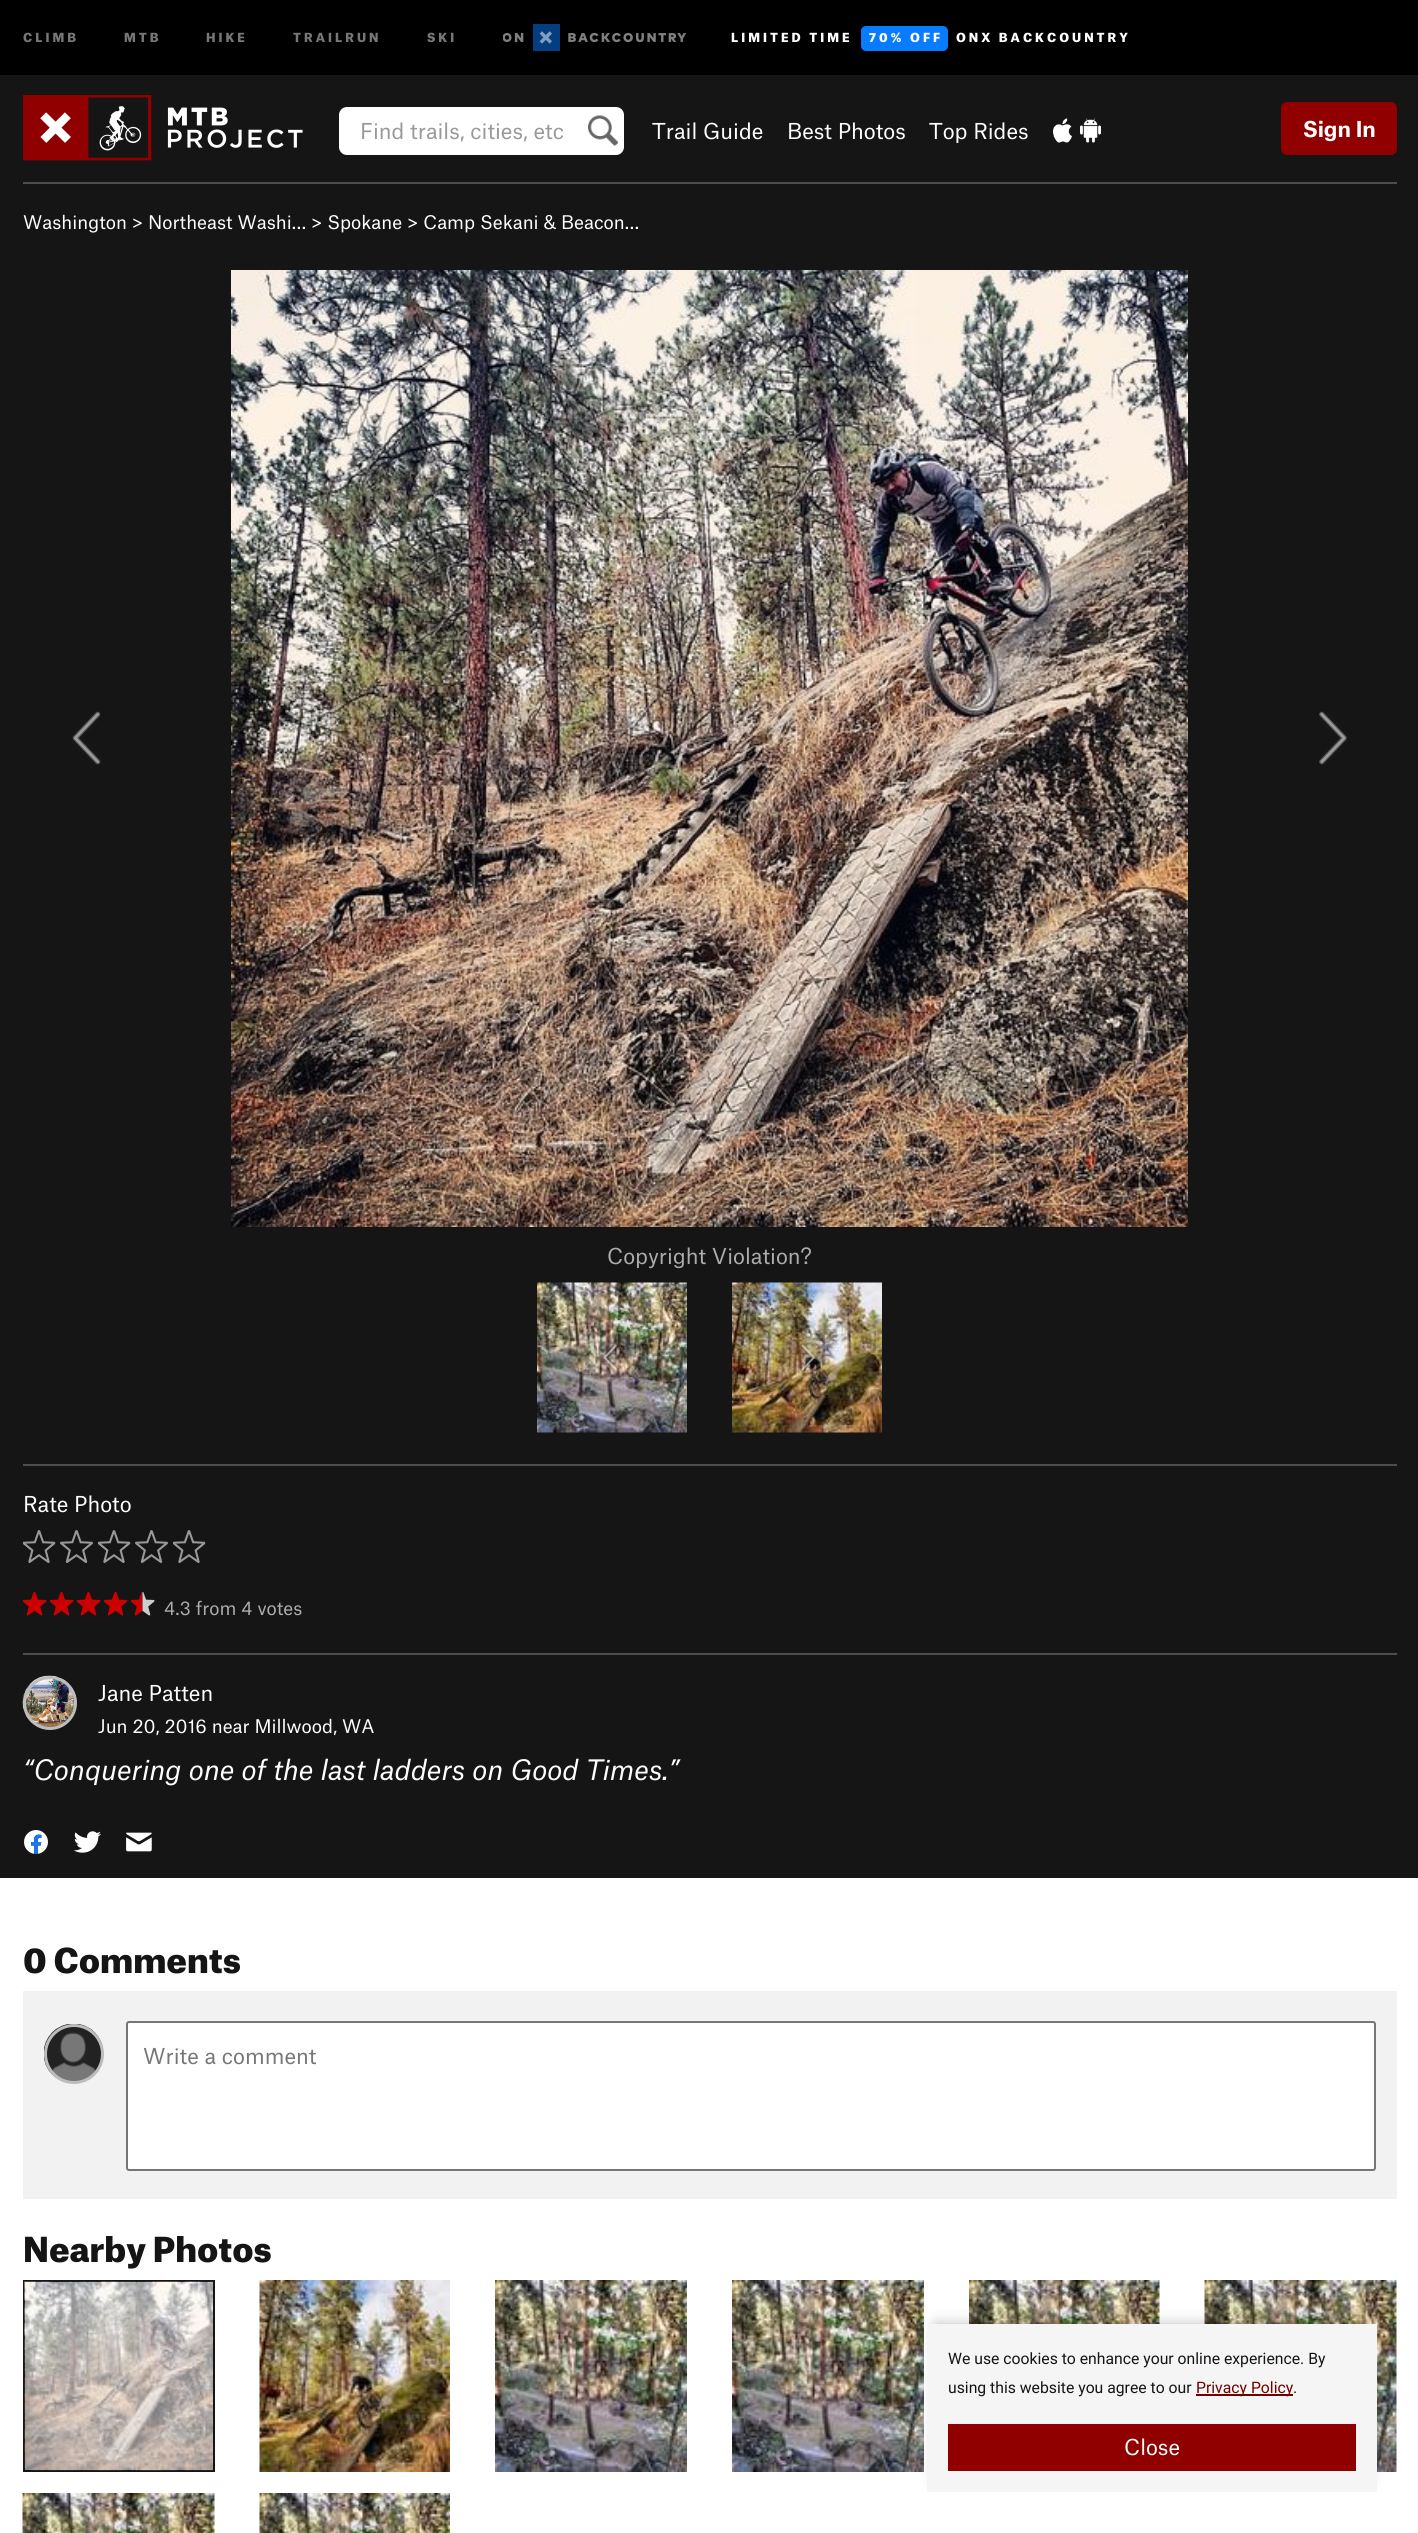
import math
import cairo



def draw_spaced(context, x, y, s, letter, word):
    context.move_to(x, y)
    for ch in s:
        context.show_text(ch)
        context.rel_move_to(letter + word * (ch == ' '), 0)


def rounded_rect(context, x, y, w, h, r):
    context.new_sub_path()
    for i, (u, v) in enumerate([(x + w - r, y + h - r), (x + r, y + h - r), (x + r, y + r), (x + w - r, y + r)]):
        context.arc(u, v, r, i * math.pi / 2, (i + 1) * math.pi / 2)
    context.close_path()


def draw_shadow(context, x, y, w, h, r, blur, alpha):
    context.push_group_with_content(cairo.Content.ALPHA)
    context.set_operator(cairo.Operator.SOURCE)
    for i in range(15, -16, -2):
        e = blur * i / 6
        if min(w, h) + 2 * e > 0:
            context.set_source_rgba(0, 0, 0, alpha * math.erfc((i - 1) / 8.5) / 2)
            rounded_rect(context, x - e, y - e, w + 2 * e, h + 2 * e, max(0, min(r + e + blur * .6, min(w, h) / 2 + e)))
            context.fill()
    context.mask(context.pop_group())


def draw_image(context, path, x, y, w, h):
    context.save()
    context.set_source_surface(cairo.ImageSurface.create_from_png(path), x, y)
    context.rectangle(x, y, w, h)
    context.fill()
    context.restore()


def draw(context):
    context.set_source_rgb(1, 1, 1)
    context.paint()
    context.set_source_rgb(21 / 255, 21 / 255, 21 / 255)
    context.rectangle(0, 75, 1418, 1803)
    context.fill()
    context.set_source_rgb(0, 0, 0)
    context.rectangle(0, 0, 1418, 75)
    context.fill()
    draw_image(context, "images/1.png", 503, 24, 184, 27)
    context.set_source_rgb(8 / 255, 123 / 255, 1)
    rounded_rect(context, 861, 26, 87, 25, 5)
    context.fill()
    draw_image(context, "images/2.png", 23, 95, 280, 66)
    context.set_source_rgb(1, 1, 1)
    rounded_rect(context, 339, 107, 285, 48, 8)
    context.fill()
    draw_image(context, "images/3.png", 588, 115, 30, 31)
    draw_image(context, "images/4.png", 1053, 118, 19, 25)
    draw_image(context, "images/5.png", 1080, 118, 21, 25)
    context.set_source_rgb(144 / 255, 0, 0)
    rounded_rect(context, 1281, 102, 116, 53, 6)
    context.fill()
    context.set_source_rgb(78 / 255, 77 / 255, 73 / 255)
    context.rectangle(23, 182, 1374, 2)
    context.fill()
    draw_image(context, "images/6.png", 72, 711, 29, 54)
    draw_image(context, "images/7.png", 231, 270, 957, 957)
    draw_image(context, "images/8.png", 1319, 711, 28, 54)
    draw_image(context, "images/9.png", 537, 1282, 150, 151)
    draw_image(context, "images/10.png", 602, 1343, 17, 29)
    draw_image(context, "images/11.png", 732, 1282, 150, 151)
    draw_image(context, "images/12.png", 800, 1343, 17, 29)
    context.rectangle(23, 1464, 1374, 2)
    context.fill()
    draw_image(context, "images/13.png", 23, 1530, 33, 33)
    draw_image(context, "images/14.png", 60, 1530, 33, 33)
    draw_image(context, "images/13.png", 98, 1530, 33, 33)
    draw_image(context, "images/14.png", 135, 1530, 33, 33)
    draw_image(context, "images/13.png", 173, 1530, 33, 33)
    draw_image(context, "images/15.png", 23, 1592, 24, 24)
    draw_image(context, "images/15.png", 50, 1592, 24, 24)
    draw_image(context, "images/15.png", 77, 1592, 24, 24)
    draw_image(context, "images/15.png", 104, 1592, 24, 24)
    draw_image(context, "images/16.png", 131, 1592, 24, 24)
    context.rectangle(23, 1653, 1374, 2)
    context.fill()
    draw_image(context, "images/17.png", 22, 1675, 55, 55)
    context.arc(50, 1703, 25.5, 0, 2 * math.pi)
    context.set_source_rgb(189 / 255, 189 / 255, 189 / 255)
    context.set_line_width(3)
    context.stroke()
    draw_image(context, "images/18.png", 24, 1830, 24, 24)
    draw_image(context, "images/19.png", 73, 1831, 28, 22)
    draw_image(context, "images/20.png", 126, 1832, 26, 20)
    context.set_source_rgb(242 / 255, 242 / 255, 242 / 255)
    context.rectangle(23, 1991, 1374, 208)
    context.fill()
    draw_image(context, "images/21.png", 44, 2024, 60, 60)
    context.arc(74, 2054, 28.5, 0, 2 * math.pi)
    context.set_source_rgb(189 / 255, 189 / 255, 189 / 255)
    context.stroke()
    context.set_source_rgb(1, 1, 1)
    rounded_rect(context, 127, 2022, 1248, 148, 2)
    context.fill_preserve()
    context.set_source_rgb(118 / 255, 118 / 255, 118 / 255)
    context.set_line_width(2)
    context.stroke()
    context.rectangle(24, 2281, 190, 190)
    context.set_source_rgb(21 / 255, 21 / 255, 21 / 255)
    context.stroke()
    draw_image(context, "images/22.png", 24, 2281, 189, 190)
    draw_image(context, "images/23.png", 259, 2280, 191, 192)
    draw_image(context, "images/24.png", 495, 2280, 192, 192)
    draw_image(context, "images/24.png", 732, 2280, 192, 192)
    draw_image(context, "images/25.png", 969, 2280, 191, 44)
    draw_image(context, "images/26.png", 1204, 2280, 193, 192)
    draw_image(context, "images/27.png", 22, 2493, 193, 40)
    draw_image(context, "images/28.png", 259, 2493, 191, 40)
    context.set_source_rgb(0, 0, 0)
    draw_shadow(context, 935, 2324, 435, 153, 0, 7.5, 0.25)
    context.set_source_rgb(245 / 255, 245 / 255, 245 / 255)
    context.rectangle(927, 2324, 450, 168)
    context.fill()
    context.set_source_rgb(113 / 255, 1 / 255, 0)
    context.rectangle(1196, 2394, 97, 2)
    context.fill()
    context.set_source_rgb(144 / 255, 0, 0)
    context.rectangle(948, 2424, 408, 47)
    context.fill()
    context.select_font_face("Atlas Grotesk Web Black")
    context.set_font_size(12)
    context.set_source_rgb(119 / 255, 119 / 255, 119 / 255)
    draw_spaced(context, 23, 42, "CLIMB", 3, 0)
    draw_spaced(context, 124, 42, "MTB", 3, 0)
    draw_spaced(context, 206, 42, "HIKE", 3, 0)
    draw_spaced(context, 293, 42, "TRAILRUN", 3, 0)
    draw_spaced(context, 427, 42, "SKI", 3, 0)
    context.set_source_rgb(1, 1, 1)
    draw_spaced(context, 731, 42, "LIMITED TIME", 3, 0)
    draw_spaced(context, 869, 42, "70% OFF", 3, 0)
    draw_spaced(context, 956, 42, "ONX BACKCOUNTRY", 3, 0)
    context.select_font_face("Atlas Grotesk Web")
    context.set_font_size(21)
    context.set_source_rgb(153 / 255, 153 / 255, 153 / 255)
    context.move_to(360, 139)
    context.show_text("Find trails, cities, etc")
    context.set_source_rgb(1, 1, 1)
    context.move_to(652, 139)
    context.show_text("Trail Guide")
    context.move_to(787, 139)
    context.show_text("Best Photos")
    context.move_to(929, 139)
    context.show_text("Top Rides")
    context.select_font_face("Atlas Grotesk Web", cairo.FontSlant.NORMAL, cairo.FontWeight.BOLD)
    context.move_to(1303, 137)
    context.show_text("Sign In")
    context.select_font_face("Atlas Grotesk Web")
    context.set_font_size(18)
    context.move_to(23, 229)
    context.show_text("Washington > Northeast Washi… > Spokane > Camp Sekani & Beacon…")
    context.set_font_size(21)
    context.set_source_rgb(172 / 255, 172 / 255, 172 / 255)
    context.move_to(607, 1264)
    context.show_text("Copyright Violation?")
    context.set_source_rgb(1, 1, 1)
    context.move_to(23, 1512)
    context.show_text("Rate Photo")
    context.set_font_size(18)
    context.set_source_rgb(172 / 255, 172 / 255, 172 / 255)
    context.move_to(164, 1615)
    context.show_text("4.3 from 4 votes")
    context.set_font_size(21)
    context.set_source_rgb(1, 1, 1)
    context.move_to(98, 1701)
    context.show_text("Jane Patten")
    context.set_font_size(18)
    context.move_to(98, 1733)
    context.show_text("Jun 20, 2016 near Millwood, WA")
    context.select_font_face("Atlas Grotesk Web", cairo.FontSlant.ITALIC)
    context.set_font_size(27)
    context.move_to(23, 1780)
    context.show_text("“Conquering one of the last ladders on Good Times.”")
    context.select_font_face("Atlas Grotesk Web Black")
    context.set_font_size(33)
    context.set_source_rgb(21 / 255, 21 / 255, 21 / 255)
    context.move_to(23, 1973)
    context.show_text("0 Comments")
    context.select_font_face("Atlas Grotesk Web")
    context.set_font_size(21)
    context.set_source_rgb(119 / 255, 119 / 255, 119 / 255)
    context.move_to(143, 2064)
    context.show_text("Write a comment")
    context.select_font_face("Atlas Grotesk Web Black")
    context.set_font_size(33)
    context.set_source_rgb(21 / 255, 21 / 255, 21 / 255)
    context.move_to(23, 2262)
    context.show_text("Nearby Photos")
    context.select_font_face("Roboto")
    context.set_font_size(15.75)
    context.move_to(948, 2364)
    context.show_text("We use cookies to enhance your online experience. By")
    context.move_to(948, 2393)
    context.show_text("using this website you agree to our")
    context.set_source_rgb(113 / 255, 1 / 255, 0)
    context.move_to(1196, 2393)
    context.show_text("Privacy Policy")
    context.set_source_rgb(21 / 255, 21 / 255, 21 / 255)
    context.move_to(1293, 2393)
    context.show_text(".")
    context.select_font_face("Atlas Grotesk Web")
    context.set_font_size(21)
    context.set_source_rgb(1, 1, 1)
    context.move_to(1124, 2455)
    context.show_text("Close")


surface = cairo.ImageSurface(cairo.Format.RGB24, 1418, 2533)
context = cairo.Context(surface)
options = cairo.FontOptions()
options.set_hint_metrics(cairo.HintMetrics.OFF)
options.set_hint_style(cairo.HintStyle.NONE)
context.set_font_options(options)
context.set_miter_limit(4)
draw(context)
surface.write_to_png("out.png")
